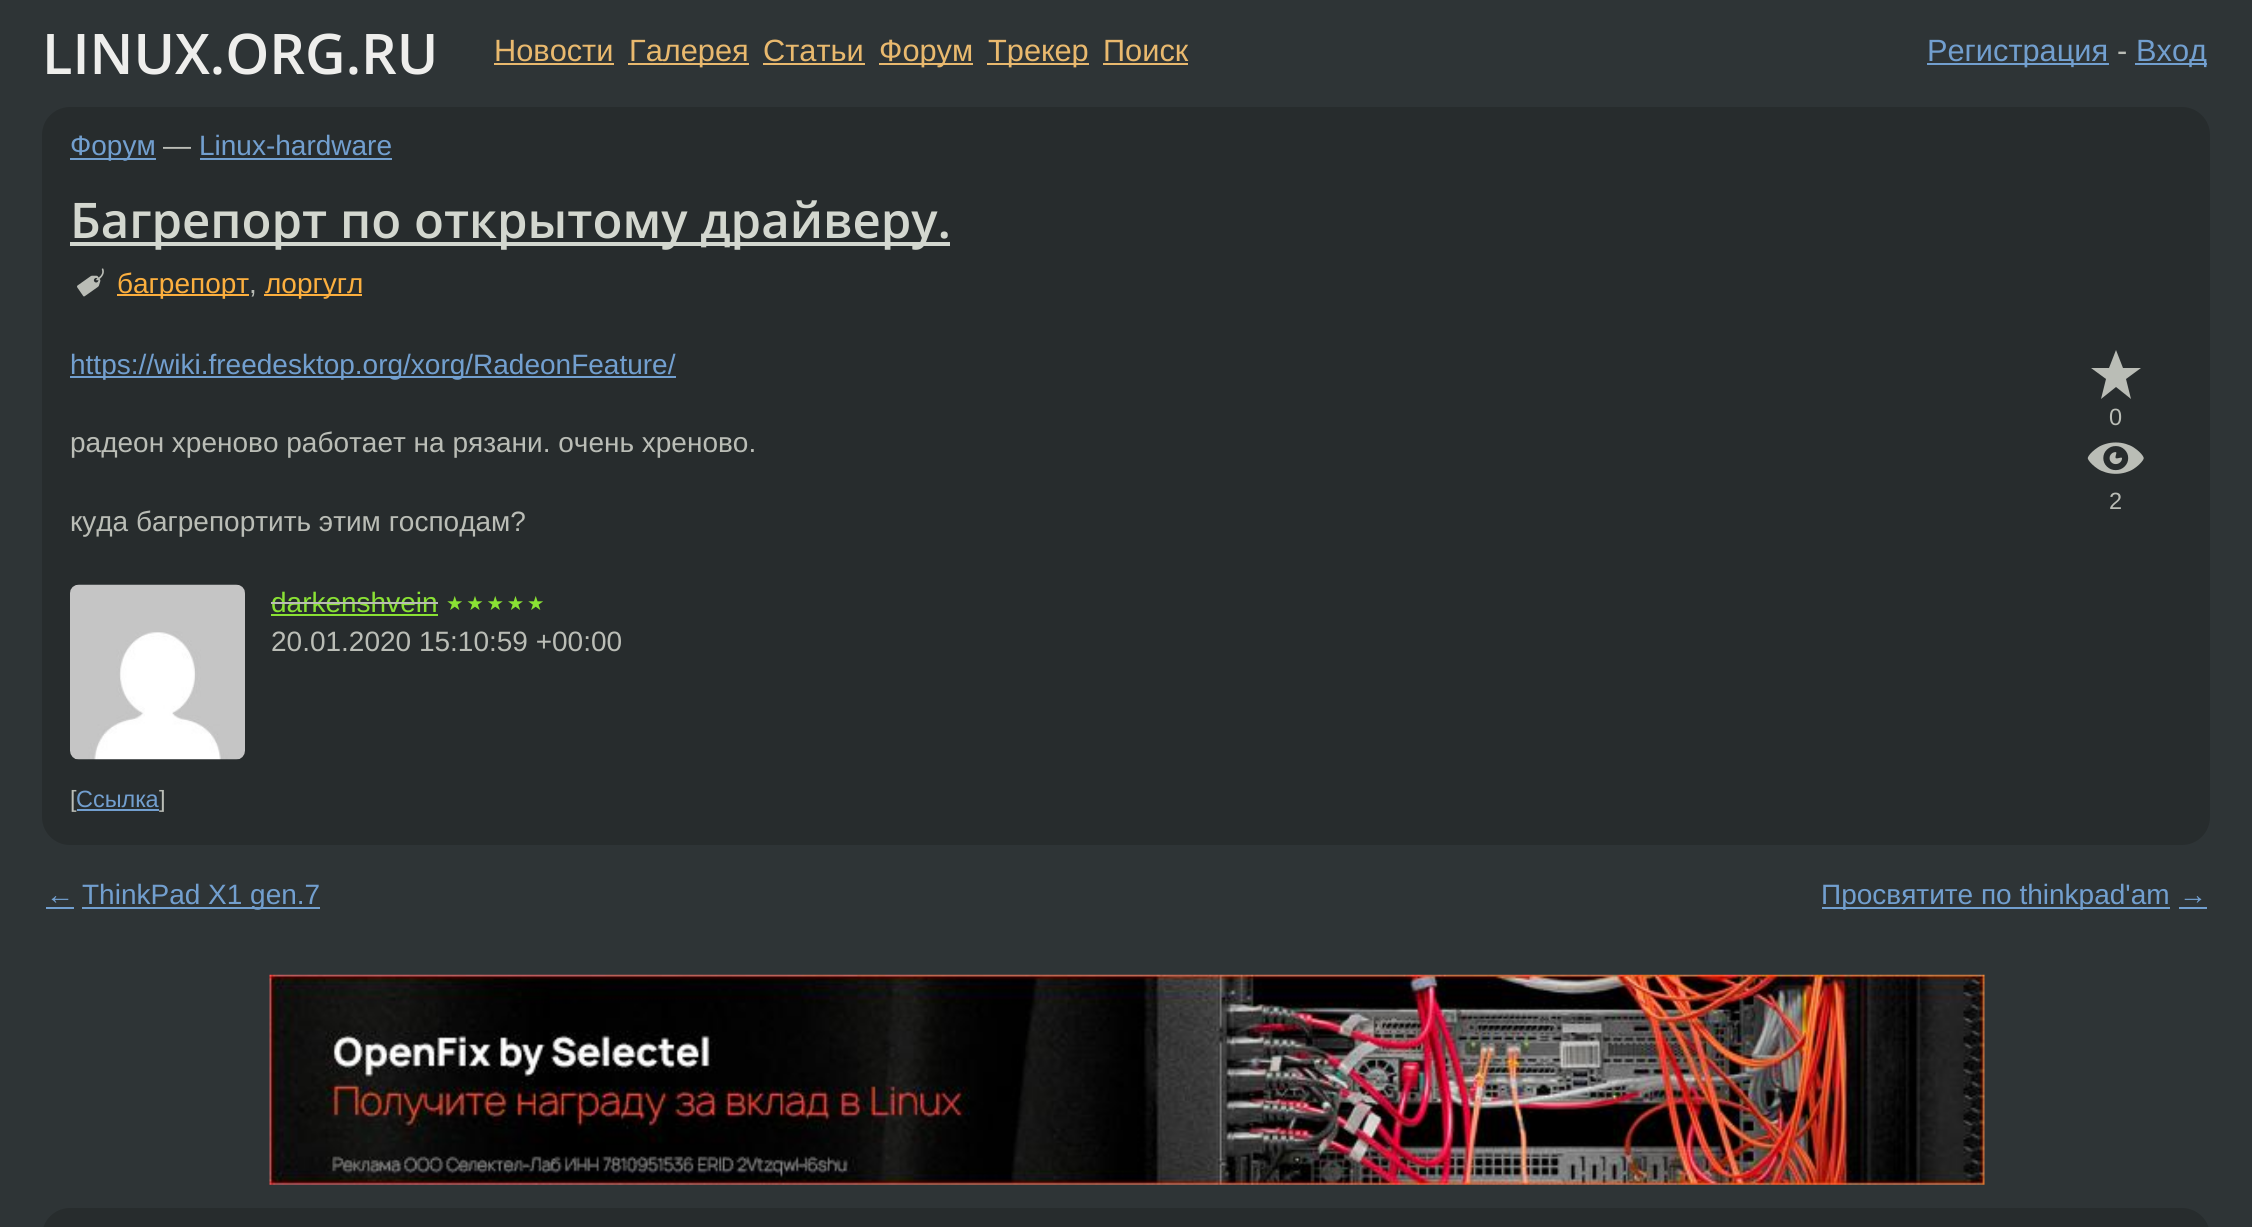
import math
import cairo



def draw_spaced(context, x, y, s, letter, word):
    context.move_to(x, y)
    for ch in s:
        context.show_text(ch)
        context.rel_move_to(letter + word * (ch == ' '), 0)


def rounded_rect(context, x, y, w, h, r):
    context.new_sub_path()
    for i, (u, v) in enumerate([(x + w - r, y + h - r), (x + r, y + h - r), (x + r, y + r), (x + w - r, y + r)]):
        context.arc(u, v, r, i * math.pi / 2, (i + 1) * math.pi / 2)
    context.close_path()


def draw_image(context, path, x, y, w, h):
    context.save()
    context.set_source_surface(cairo.ImageSurface.create_from_png(path), x, y)
    context.rectangle(x, y, w, h)
    context.fill()
    context.restore()


def draw(context):
    context.set_source_rgb(46 / 255, 52 / 255, 54 / 255)
    context.paint()
    context.set_source_rgb(233 / 255, 185 / 255, 110 / 255)
    context.rectangle(494, 63, 120, 2)
    context.fill()
    context.rectangle(628, 63, 121, 2)
    context.fill()
    context.rectangle(763, 63, 102, 2)
    context.fill()
    context.rectangle(879, 63, 94, 2)
    context.fill()
    context.rectangle(987, 63, 102, 2)
    context.fill()
    context.rectangle(1103, 63, 85, 2)
    context.fill()
    context.set_source_rgb(114 / 255, 159 / 255, 207 / 255)
    context.rectangle(1927, 63, 182, 2)
    context.fill()
    context.rectangle(2135, 63, 72, 2)
    context.fill()
    context.set_source_rgb(39 / 255, 44 / 255, 45 / 255)
    rounded_rect(context, 42, 107, 2168, 738, 28)
    context.fill()
    context.set_source_rgb(114 / 255, 159 / 255, 207 / 255)
    context.rectangle(70, 158, 86, 2)
    context.fill()
    context.rectangle(200, 158, 192, 2)
    context.fill()
    context.set_source_rgb(211 / 255, 215 / 255, 207 / 255)
    context.rectangle(70, 242, 880, 4)
    context.fill()
    draw_image(context, "images/1.png", 77, 268, 27, 29)
    context.set_source_rgb(252 / 255, 175 / 255, 62 / 255)
    context.rectangle(117, 294, 132, 2)
    context.fill()
    context.rectangle(264, 294, 98, 2)
    context.fill()
    context.set_source_rgb(114 / 255, 159 / 255, 207 / 255)
    context.rectangle(70, 376, 606, 2)
    context.fill()
    context.set_source_rgb(186 / 255, 189 / 255, 182 / 255)
    context.new_path()
    context.move_to(2116, 350)
    context.line_to(2123, 368)
    context.line_to(2141, 368)
    context.line_to(2126, 379)
    context.line_to(2131, 399)
    context.line_to(2116, 387)
    context.line_to(2101, 399)
    context.line_to(2106, 379)
    context.line_to(2091, 368)
    context.line_to(2109, 368)
    context.close_path()
    context.fill()
    draw_image(context, "images/2.png", 2087, 442, 57, 32)
    draw_image(context, "images/3.png", 70, 584, 175, 176)
    context.set_source_rgb(138 / 255, 226 / 255, 52 / 255)
    context.rectangle(271, 614, 167, 2)
    context.fill()
    context.set_source_rgb(114 / 255, 159 / 255, 207 / 255)
    context.rectangle(77, 809, 82, 2)
    context.fill()
    context.rectangle(46, 907, 28, 2)
    context.fill()
    context.rectangle(82, 907, 238, 2)
    context.fill()
    context.rectangle(1822, 907, 348, 2)
    context.fill()
    context.rectangle(2179, 907, 28, 2)
    context.fill()
    draw_image(context, "images/4.png", 269, 974, 1716, 211)
    context.set_source_rgb(39 / 255, 44 / 255, 45 / 255)
    rounded_rect(context, 42, 1208, 2168, 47, 28)
    context.fill()
    context.select_font_face("Open Sans SemiBold")
    context.set_font_size(56)
    context.set_source_rgb(238 / 255, 238 / 255, 236 / 255)
    context.move_to(42, 74)
    context.show_text("LINUX.ORG.RU")
    context.select_font_face("Liberation Sans")
    context.set_font_size(30.75)
    context.set_source_rgb(233 / 255, 185 / 255, 110 / 255)
    context.move_to(494, 61)
    context.show_text("Новости")
    context.move_to(629, 61)
    context.show_text("Галерея")
    context.move_to(763, 61)
    context.show_text("Статьи")
    context.move_to(879, 61)
    context.show_text("Форум")
    context.move_to(988, 61)
    context.show_text("Трекер")
    context.move_to(1103, 61)
    context.show_text("Поиск")
    context.set_source_rgb(114 / 255, 159 / 255, 207 / 255)
    context.move_to(1927, 61)
    context.show_text("Регистрация")
    context.set_source_rgb(186 / 255, 189 / 255, 182 / 255)
    context.move_to(2117, 61)
    context.show_text("-")
    context.set_source_rgb(114 / 255, 159 / 255, 207 / 255)
    context.move_to(2136, 61)
    context.show_text("Вход")
    context.set_font_size(28)
    context.move_to(70, 155)
    context.show_text("Форум")
    context.set_source_rgb(186 / 255, 189 / 255, 182 / 255)
    context.move_to(163, 155)
    context.show_text("—")
    context.set_source_rgb(114 / 255, 159 / 255, 207 / 255)
    context.move_to(199, 155)
    context.show_text("Linux-hardware")
    context.select_font_face("Open Sans SemiBold")
    context.set_font_size(49.1)
    context.set_source_rgb(211 / 255, 215 / 255, 207 / 255)
    context.move_to(70, 238)
    context.show_text("Багрепорт по открытому драйверу.")
    context.select_font_face("Liberation Sans")
    context.set_font_size(28)
    context.set_source_rgb(252 / 255, 175 / 255, 62 / 255)
    context.move_to(117, 293)
    context.show_text("багрепорт")
    context.set_source_rgb(186 / 255, 189 / 255, 182 / 255)
    context.move_to(249, 293)
    context.show_text(",")
    context.set_source_rgb(252 / 255, 175 / 255, 62 / 255)
    context.move_to(265, 293)
    context.show_text("лоргугл")
    context.set_source_rgb(114 / 255, 159 / 255, 207 / 255)
    context.move_to(70, 374)
    context.show_text("https://wiki.freedesktop.org/xorg/RadeonFeature/")
    context.set_source_rgb(186 / 255, 189 / 255, 182 / 255)
    context.move_to(70, 452)
    context.show_text("радеон хреново работает на рязани. очень хреново.")
    context.move_to(70, 531)
    context.show_text("куда багрепортить этим господам?")
    context.set_font_size(23.5)
    context.move_to(2109, 425)
    context.show_text("0")
    context.move_to(2109, 509)
    context.show_text("2")
    context.set_font_size(28)
    context.set_source_rgb(138 / 255, 226 / 255, 52 / 255)
    context.move_to(271, 612)
    context.show_text("darkenshvein")
    context.set_source_rgb(186 / 255, 189 / 255, 182 / 255)
    context.rectangle(271, 602, 167, 2)
    context.fill()
    context.select_font_face("DejaVu Sans")
    context.set_font_size(19.5)
    context.set_source_rgb(138 / 255, 226 / 255, 52 / 255)
    draw_spaced(context, 446, 610, "★★★★★", 2.75, 0)
    context.select_font_face("Liberation Sans")
    context.set_font_size(28)
    context.set_source_rgb(186 / 255, 189 / 255, 182 / 255)
    context.move_to(271, 651)
    context.show_text("20.01.2020 15:10:59 +00:00")
    context.set_font_size(23.5)
    context.move_to(70, 807)
    context.show_text("[")
    context.set_source_rgb(114 / 255, 159 / 255, 207 / 255)
    context.move_to(76, 807)
    context.show_text("Ссылка")
    context.set_source_rgb(186 / 255, 189 / 255, 182 / 255)
    context.move_to(159, 807)
    context.show_text("]")
    context.set_font_size(28)
    context.set_source_rgb(114 / 255, 159 / 255, 207 / 255)
    context.move_to(46, 904)
    context.show_text("←")
    context.move_to(82, 904)
    context.show_text("ThinkPad X1 gen.7")
    context.move_to(1821, 904)
    context.show_text("Просвятите по thinkpad'am")
    context.move_to(2179, 904)
    context.show_text("→")


surface = cairo.ImageSurface(cairo.Format.RGB24, 2252, 1227)
context = cairo.Context(surface)
options = cairo.FontOptions()
options.set_hint_metrics(cairo.HintMetrics.OFF)
options.set_hint_style(cairo.HintStyle.NONE)
context.set_font_options(options)
context.set_miter_limit(4)
draw(context)
surface.write_to_png("out.png")
